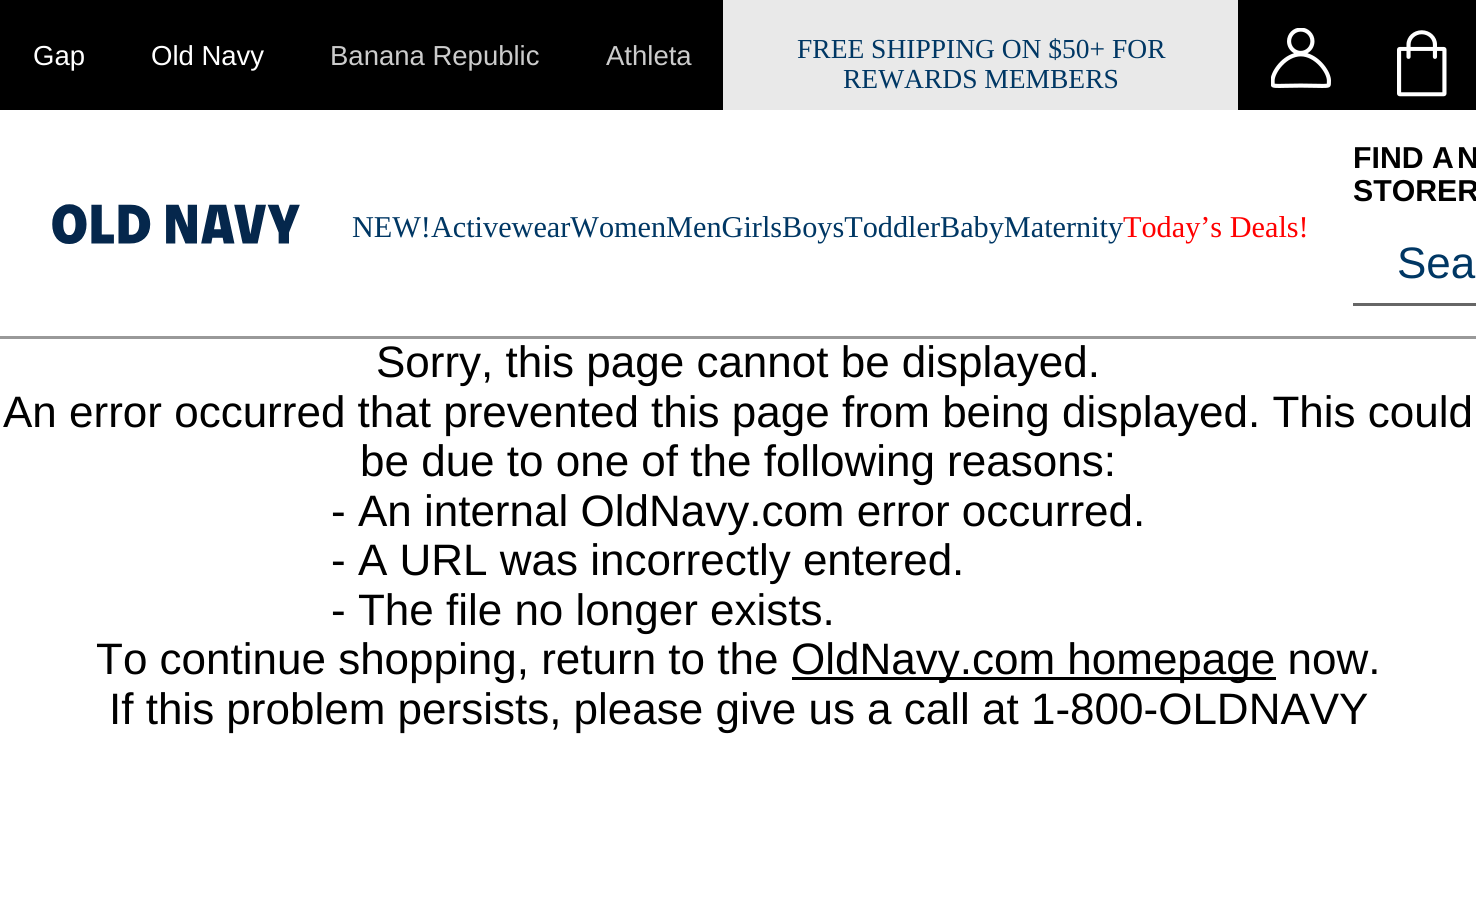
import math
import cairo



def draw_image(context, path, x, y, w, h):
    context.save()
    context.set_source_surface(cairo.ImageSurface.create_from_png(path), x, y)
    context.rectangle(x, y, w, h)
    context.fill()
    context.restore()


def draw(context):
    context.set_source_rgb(1, 1, 1)
    context.paint()
    context.set_source_rgb(0, 0, 0)
    context.rectangle(0, 0, 1476, 110)
    context.fill()
    context.set_source_rgb(233 / 255, 233 / 255, 233 / 255)
    context.rectangle(723, 0, 515, 110)
    context.fill()
    draw_image(context, "images/1.png", 1271, 28, 60, 60)
    draw_image(context, "images/2.png", 1397, 30, 50, 67)
    context.set_source_rgb(153 / 255, 153 / 255, 153 / 255)
    context.rectangle(0, 336, 1476, 3)
    context.fill()
    draw_image(context, "images/3.png", 52, 204, 248, 40)
    context.set_source_rgb(102 / 255, 102 / 255, 102 / 255)
    context.rectangle(1353, 303, 123, 3)
    context.fill()
    context.set_source_rgb(0, 0, 0)
    context.rectangle(792, 677, 484, 3)
    context.fill()
    context.select_font_face("Liberation Sans")
    context.set_font_size(27.5)
    context.set_source_rgb(1, 1, 1)
    context.move_to(33, 65)
    context.show_text("Gap")
    context.move_to(151, 65)
    context.show_text("Old Navy")
    context.set_source_rgb(204 / 255, 204 / 255, 204 / 255)
    context.move_to(330, 65)
    context.show_text("Banana Republic")
    context.move_to(606, 65)
    context.show_text("Athleta")
    context.select_font_face("Liberation Serif")
    context.set_source_rgb(0, 55 / 255, 100 / 255)
    context.move_to(797, 58)
    context.show_text("FREE SHIPPING ON $50+ FOR")
    context.move_to(843, 88)
    context.show_text("REWARDS MEMBERS")
    context.set_font_size(30.25)
    context.move_to(352, 237)
    context.show_text("NEW!ActivewearWomenMenGirlsBoysToddlerBabyMaternity")
    context.set_source_rgb(1, 0, 0)
    context.move_to(1123, 237)
    context.show_text("Today’s Deals!")
    context.select_font_face("Liberation Sans", cairo.FontSlant.NORMAL, cairo.FontWeight.BOLD)
    context.set_source_rgb(0, 0, 0)
    context.move_to(1353, 168)
    context.show_text("FIND A")
    context.move_to(1353, 201)
    context.show_text("STORER")
    context.move_to(1457, 168)
    context.show_text("N")
    context.select_font_face("Liberation Sans")
    context.set_font_size(44)
    context.set_source_rgb(0, 55 / 255, 100 / 255)
    context.move_to(1397, 278)
    context.show_text("Sea")
    context.set_source_rgb(0, 0, 0)
    context.move_to(376, 377)
    context.show_text("Sorry, this page cannot be displayed.")
    context.move_to(3, 427)
    context.show_text("An error occurred that prevented this page from being displayed. This could")
    context.move_to(360, 476)
    context.show_text("be due to one of the following reasons:")
    context.move_to(331, 526)
    context.show_text("- An internal OldNavy.com error occurred.")
    context.move_to(331, 575)
    context.show_text("- A URL was incorrectly entered.")
    context.move_to(331, 625)
    context.show_text("- The file no longer exists.")
    context.move_to(96, 674)
    context.show_text("To continue shopping, return to the")
    context.move_to(791, 674)
    context.show_text("OldNavy.com homepage now.")
    context.move_to(109, 724)
    context.show_text("If this problem persists, please give us a call at 1-800-OLDNAVY")


surface = cairo.ImageSurface(cairo.Format.RGB24, 1476, 901)
context = cairo.Context(surface)
options = cairo.FontOptions()
options.set_hint_metrics(cairo.HintMetrics.OFF)
options.set_hint_style(cairo.HintStyle.NONE)
context.set_font_options(options)
context.set_miter_limit(4)
draw(context)
surface.write_to_png("out.png")
